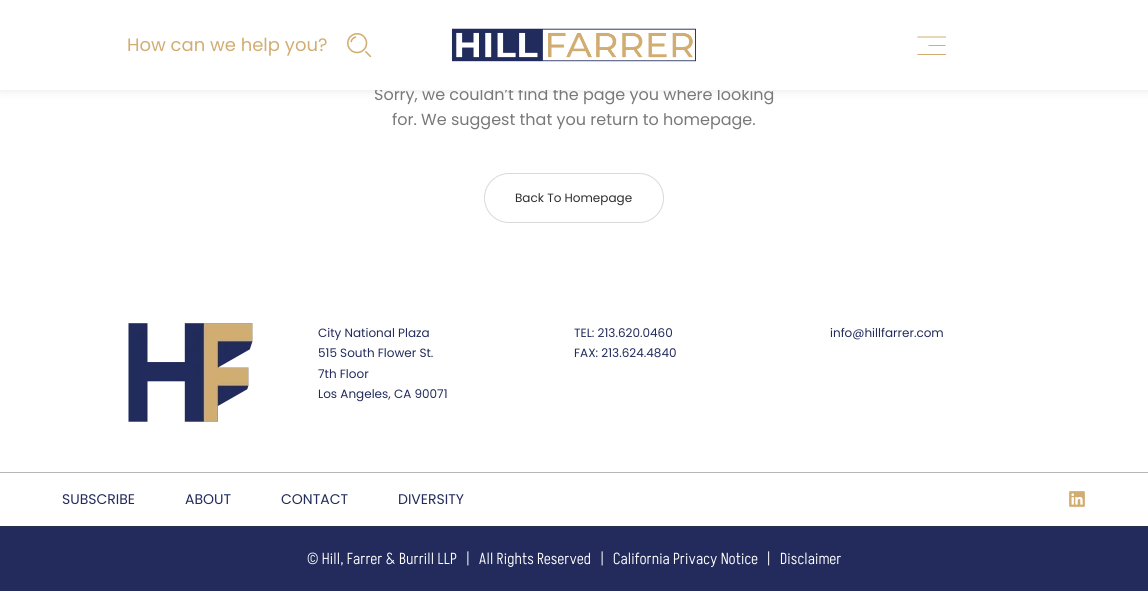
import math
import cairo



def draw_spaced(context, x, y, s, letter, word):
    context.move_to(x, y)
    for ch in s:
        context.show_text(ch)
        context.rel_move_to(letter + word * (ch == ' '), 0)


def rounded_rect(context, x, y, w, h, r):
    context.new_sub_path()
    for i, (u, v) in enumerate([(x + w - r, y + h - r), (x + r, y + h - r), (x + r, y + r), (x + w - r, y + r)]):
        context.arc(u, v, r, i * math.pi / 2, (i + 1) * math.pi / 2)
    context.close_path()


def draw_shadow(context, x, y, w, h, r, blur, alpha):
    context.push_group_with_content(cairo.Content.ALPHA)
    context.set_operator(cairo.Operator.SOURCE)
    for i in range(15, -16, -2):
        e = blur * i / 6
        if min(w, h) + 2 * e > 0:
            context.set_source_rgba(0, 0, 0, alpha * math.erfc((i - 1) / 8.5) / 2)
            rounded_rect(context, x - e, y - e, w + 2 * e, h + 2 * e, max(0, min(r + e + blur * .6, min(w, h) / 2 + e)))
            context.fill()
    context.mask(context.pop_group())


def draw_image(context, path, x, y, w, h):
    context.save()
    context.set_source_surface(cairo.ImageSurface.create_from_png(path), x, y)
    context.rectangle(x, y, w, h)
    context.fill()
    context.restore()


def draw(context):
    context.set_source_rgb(1, 1, 1)
    context.paint()
    context.set_source_rgb(0, 0, 0)
    draw_shadow(context, 0, 0, 1148, 90, 0, 5, 0.1)
    rounded_rect(context, 484.5, 173.5, 179, 49, 24.5)
    context.set_source_rgb(217 / 255, 217 / 255, 217 / 255)
    context.set_line_width(1)
    context.stroke()
    draw_image(context, "images/3.png", 128, 323, 125, 99)
    context.set_source_rgb(182 / 255, 182 / 255, 182 / 255)
    context.rectangle(0, 472, 1148, 1)
    context.fill()
    draw_image(context, "images/4.png", 1069, 491, 16, 16)
    context.set_source_rgb(34 / 255, 43 / 255, 91 / 255)
    context.rectangle(0, 527, 1148, 64)
    context.fill()
    context.set_source_rgb(40 / 255, 46 / 255, 77 / 255)
    context.rectangle(0, 526, 1148, 1)
    context.fill()
    context.select_font_face("Poppins")
    context.set_font_size(16)
    context.set_source_rgb(120 / 255, 120 / 255, 120 / 255)
    context.move_to(374, 100)
    context.show_text("Sorry, we couldn’t find the page you where looking")
    context.set_source_rgb(1, 1, 1)
    context.rectangle(0, 0, 1148, 90)
    context.fill()
    context.new_path()
    context.move_to(929, 45.5)
    context.line_to(945, 45.5)
    context.move_to(918, 37)
    context.line_to(945.5, 37)
    context.move_to(918, 54.5)
    context.line_to(945.5, 54.5)
    context.set_source_rgb(210 / 255, 173 / 255, 114 / 255)
    context.set_line_cap(cairo.LineCap.SQUARE)
    context.stroke()
    draw_image(context, "images/2.png", 451, 28, 245, 34)
    draw_image(context, "images/1.png", 347, 33, 25, 25)
    context.set_font_size(18)
    context.move_to(127, 51)
    context.show_text("How can we help you?")
    context.set_font_size(16)
    context.set_source_rgb(120 / 255, 120 / 255, 120 / 255)
    context.move_to(392, 125)
    context.show_text("for. We suggest that you return to homepage.")
    context.set_font_size(12)
    context.set_source_rgb(45 / 255, 45 / 255, 45 / 255)
    context.move_to(515, 202)
    context.show_text("Back To Homepage")
    context.set_source_rgb(34 / 255, 43 / 255, 91 / 255)
    context.move_to(318, 337)
    context.show_text("City National Plaza")
    context.move_to(318, 357)
    context.show_text("515 South Flower St.")
    context.move_to(318, 378)
    context.show_text("7th Floor")
    context.move_to(318, 398)
    context.show_text("Los Angeles, CA 90071")
    context.move_to(574, 337)
    context.show_text("TEL: 213.620.0460")
    context.move_to(574, 357)
    context.show_text("FAX: 213.624.4840")
    context.move_to(830, 337)
    context.show_text("info@hillfarrer.com")
    context.set_font_size(14)
    context.move_to(62, 504)
    context.show_text("SUBSCRIBE")
    context.move_to(185, 504)
    context.show_text("ABOUT")
    context.move_to(281, 504)
    context.show_text("CONTACT")
    context.move_to(398, 504)
    context.show_text("DIVERSITY")
    context.select_font_face("Akshar Light")
    context.set_font_size(16)
    context.set_source_rgb(1, 1, 1)
    draw_spaced(context, 307, 564, "© Hill, Farrer & Burrill LLP   |   All Rights Reserved   |", 0.2, 0)
    draw_spaced(context, 613, 564, "California Privacy Notice", 0.2, 0)
    draw_spaced(context, 767, 564, "|", 0.2, 0)
    draw_spaced(context, 780, 564, "Disclaimer", 0.2, 0)


surface = cairo.ImageSurface(cairo.Format.RGB24, 1148, 591)
context = cairo.Context(surface)
options = cairo.FontOptions()
options.set_hint_metrics(cairo.HintMetrics.OFF)
options.set_hint_style(cairo.HintStyle.NONE)
context.set_font_options(options)
context.set_miter_limit(4)
draw(context)
surface.write_to_png("out.png")
